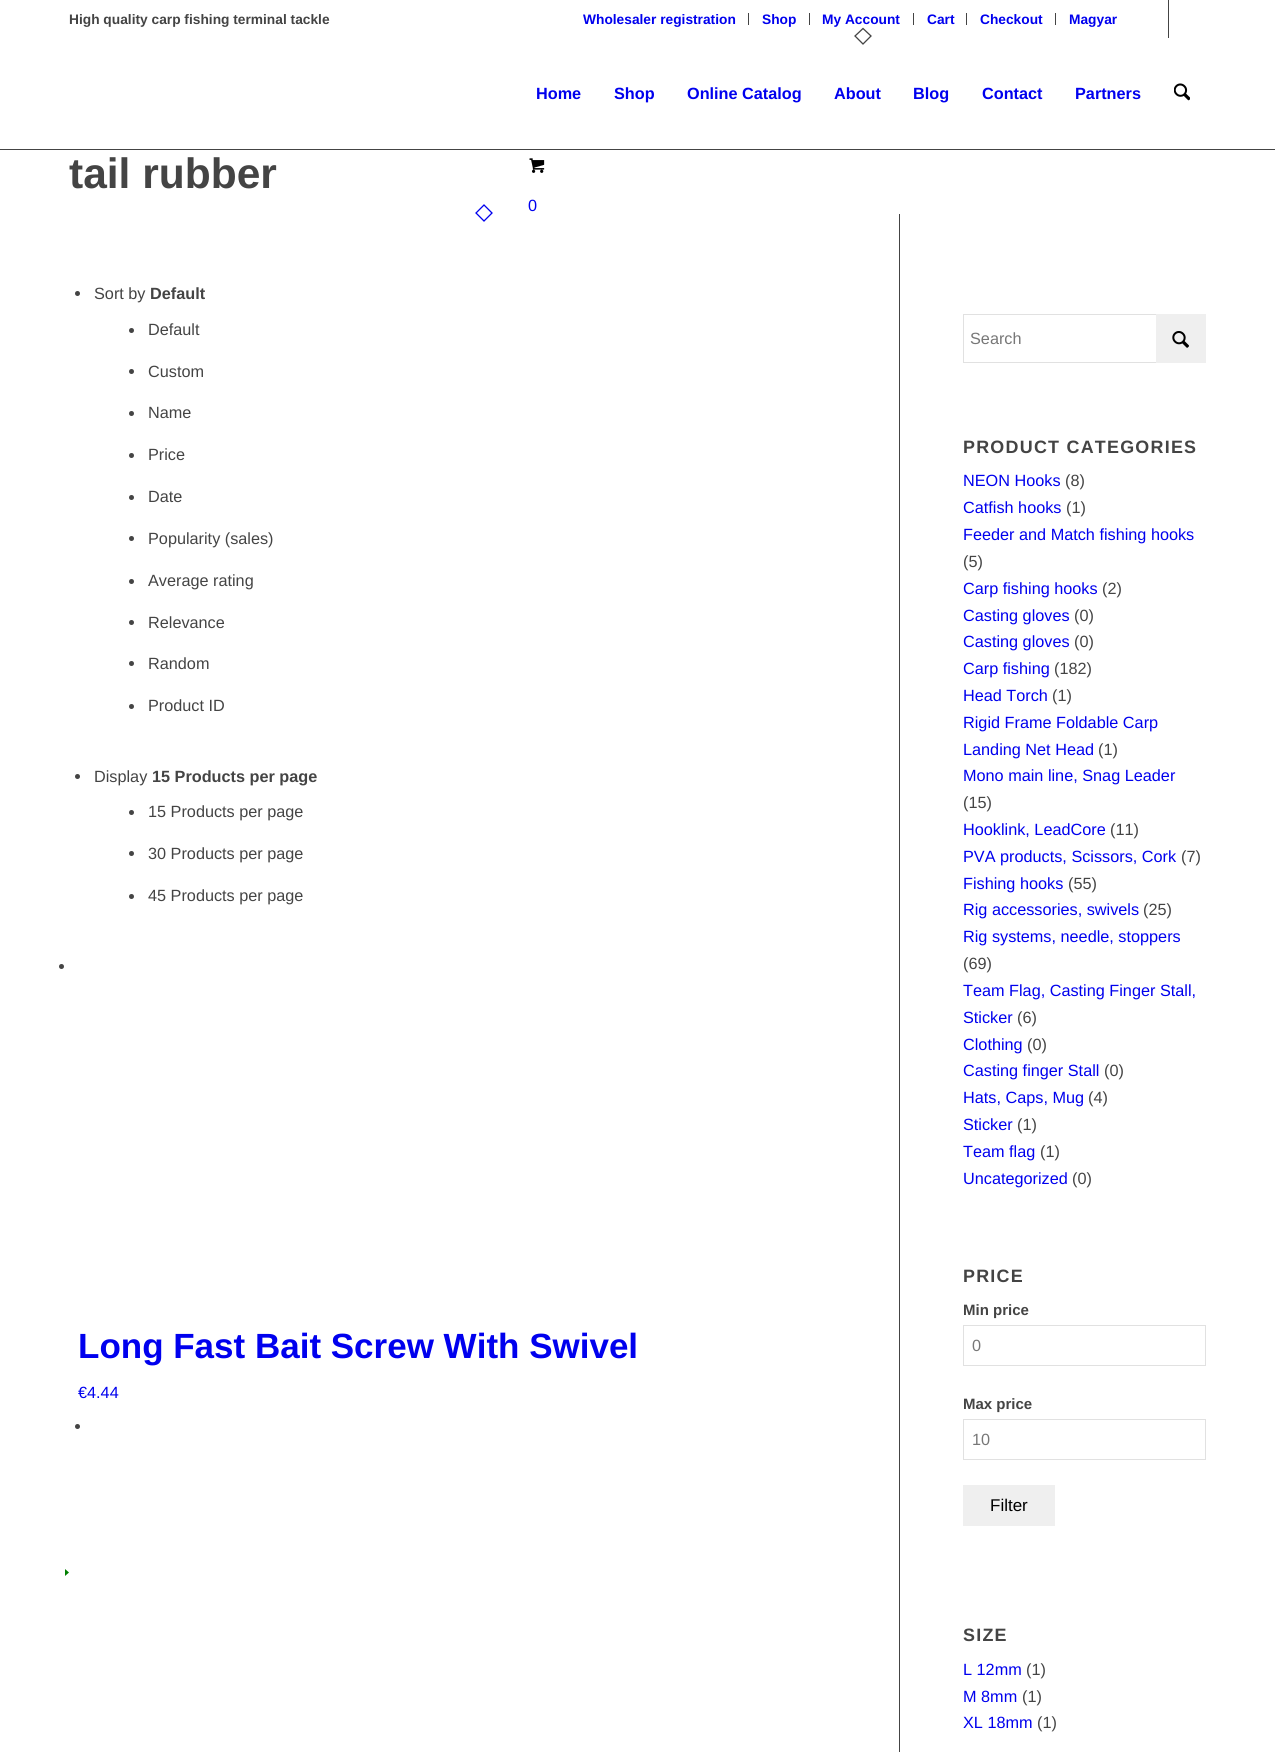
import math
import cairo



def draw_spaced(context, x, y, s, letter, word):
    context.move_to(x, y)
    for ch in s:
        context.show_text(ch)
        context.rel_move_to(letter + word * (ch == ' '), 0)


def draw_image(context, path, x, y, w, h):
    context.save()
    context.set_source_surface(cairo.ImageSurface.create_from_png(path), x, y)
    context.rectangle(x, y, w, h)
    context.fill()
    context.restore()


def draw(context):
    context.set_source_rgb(1, 1, 1)
    context.paint()
    context.set_source_rgb(68 / 255, 68 / 255, 68 / 255)
    context.rectangle(748, 13, 1, 12)
    context.fill()
    context.rectangle(809, 13, 1, 12)
    context.fill()
    context.rectangle(913, 13, 1, 12)
    context.fill()
    context.rectangle(966, 13, 1, 12)
    context.fill()
    context.rectangle(1055, 13, 1, 12)
    context.fill()
    context.rectangle(1168, 0, 1, 38)
    context.fill()
    draw_image(context, "images/1.png", 1174, 83, 16, 18)
    context.new_path()
    context.move_to(863, 28.5)
    context.line_to(871, 36)
    context.line_to(863, 44)
    context.line_to(855, 36)
    context.close_path()
    context.set_line_width(1.3)
    context.stroke()
    draw_image(context, "images/2.png", 529, 158, 16, 15)
    context.rectangle(0, 149, 1275, 1)
    context.fill()
    context.rectangle(899, 214, 1, 1538)
    context.fill()
    context.arc(77.5, 293.5, 2.5, 0, 2 * math.pi)
    context.fill()
    context.arc(131.5, 330.5, 2.5, 0, 2 * math.pi)
    context.fill()
    context.arc(131.5, 371.5, 2.5, 0, 2 * math.pi)
    context.fill()
    context.arc(131.5, 413.5, 2.5, 0, 2 * math.pi)
    context.fill()
    context.arc(131.5, 455.5, 2.5, 0, 2 * math.pi)
    context.fill()
    context.arc(131.5, 497.5, 2.5, 0, 2 * math.pi)
    context.fill()
    context.arc(131.5, 538.5, 2.5, 0, 2 * math.pi)
    context.fill()
    context.arc(131.5, 581.5, 2.5, 0, 2 * math.pi)
    context.fill()
    context.arc(131.5, 622.5, 2.5, 0, 2 * math.pi)
    context.fill()
    context.arc(131.5, 663.5, 2.5, 0, 2 * math.pi)
    context.fill()
    context.arc(131.5, 706.5, 2.5, 0, 2 * math.pi)
    context.fill()
    context.arc(77.5, 776.5, 2.5, 0, 2 * math.pi)
    context.fill()
    context.arc(131.5, 812.5, 2.5, 0, 2 * math.pi)
    context.fill()
    context.arc(131.5, 853.5, 2.5, 0, 2 * math.pi)
    context.fill()
    context.arc(131.5, 896.5, 2.5, 0, 2 * math.pi)
    context.fill()
    context.set_source_rgb(0, 128 / 255, 0)
    context.new_path()
    context.move_to(65, 1576)
    context.line_to(65, 1569)
    context.line_to(69, 1572.5)
    context.close_path()
    context.fill()
    context.set_source_rgb(68 / 255, 68 / 255, 68 / 255)
    context.arc(61.5, 966.5, 2.5, 0, 2 * math.pi)
    context.fill()
    context.new_path()
    context.move_to(484, 205)
    context.line_to(492, 213)
    context.line_to(484, 221)
    context.line_to(476, 213)
    context.close_path()
    context.move_to(484, 205)
    context.line_to(492, 213)
    context.line_to(484, 221)
    context.line_to(476, 213)
    context.close_path()
    context.move_to(484, 205)
    context.line_to(492, 213)
    context.line_to(484, 221)
    context.line_to(476, 213)
    context.close_path()
    context.move_to(484, 205)
    context.line_to(492, 213)
    context.line_to(484, 221)
    context.line_to(476, 213)
    context.close_path()
    context.set_source_rgb(0, 0, 238 / 255)
    context.stroke()
    context.set_source_rgb(68 / 255, 68 / 255, 68 / 255)
    context.arc(77.5, 1426.5, 2.5, 0, 2 * math.pi)
    context.fill()
    context.rectangle(963.5, 314.5, 242, 48)
    context.set_source_rgb(225 / 255, 225 / 255, 225 / 255)
    context.set_line_width(1)
    context.stroke()
    context.set_source_rgb(239 / 255, 239 / 255, 239 / 255)
    context.rectangle(1156, 314, 50, 49)
    context.fill()
    draw_image(context, "images/3.png", 1172, 331, 17, 17)
    context.rectangle(963.5, 1325.5, 242, 40)
    context.set_source_rgb(225 / 255, 225 / 255, 225 / 255)
    context.stroke()
    context.rectangle(963.5, 1419.5, 242, 40)
    context.stroke()
    context.set_source_rgb(239 / 255, 239 / 255, 239 / 255)
    context.rectangle(963, 1485, 92, 41)
    context.fill()
    context.select_font_face("Liberation Sans", cairo.FontSlant.NORMAL, cairo.FontWeight.BOLD)
    context.set_font_size(13.75)
    context.set_source_rgb(68 / 255, 68 / 255, 68 / 255)
    context.move_to(69, 24)
    context.show_text("High quality carp fishing terminal tackle")
    context.set_source_rgb(0, 0, 238 / 255)
    context.move_to(583, 24)
    context.show_text("Wholesaler registration")
    context.move_to(762, 24)
    context.show_text("Shop")
    context.move_to(822, 24)
    context.show_text("My Account")
    context.move_to(927, 24)
    context.show_text("Cart")
    context.move_to(980, 24)
    context.show_text("Checkout")
    context.move_to(1069, 24)
    context.show_text("Magyar")
    context.set_font_size(16.25)
    context.move_to(536, 99)
    context.show_text("Home")
    context.move_to(614, 99)
    context.show_text("Shop")
    context.move_to(687, 99)
    context.show_text("Online Catalog")
    context.move_to(834, 99)
    context.show_text("About")
    context.move_to(913, 99)
    context.show_text("Blog")
    context.move_to(982, 99)
    context.show_text("Contact")
    context.move_to(1075, 99)
    context.show_text("Partners")
    context.select_font_face("Liberation Sans")
    context.move_to(528, 211)
    context.show_text("0")
    context.select_font_face("Liberation Sans", cairo.FontSlant.NORMAL, cairo.FontWeight.BOLD)
    context.set_font_size(42.5)
    context.set_source_rgb(68 / 255, 68 / 255, 68 / 255)
    context.move_to(69, 188)
    context.show_text("tail rubber")
    context.select_font_face("Liberation Sans")
    context.set_font_size(16.25)
    context.move_to(94, 299)
    context.show_text("Sort by")
    context.select_font_face("Liberation Sans", cairo.FontSlant.NORMAL, cairo.FontWeight.BOLD)
    context.move_to(150, 299)
    context.show_text("Default")
    context.select_font_face("Liberation Sans")
    context.move_to(148, 335)
    context.show_text("Default")
    context.move_to(148, 377)
    context.show_text("Custom")
    context.move_to(148, 418)
    context.show_text("Name")
    context.move_to(148, 460)
    context.show_text("Price")
    context.move_to(148, 502)
    context.show_text("Date")
    context.move_to(148, 544)
    context.show_text("Popularity (sales)")
    context.move_to(148, 586)
    context.show_text("Average rating")
    context.move_to(148, 628)
    context.show_text("Relevance")
    context.move_to(148, 669)
    context.show_text("Random")
    context.move_to(148, 711)
    context.show_text("Product ID")
    context.move_to(94, 782)
    context.show_text("Display")
    context.select_font_face("Liberation Sans", cairo.FontSlant.NORMAL, cairo.FontWeight.BOLD)
    context.move_to(152, 782)
    context.show_text("15 Products per page")
    context.select_font_face("Liberation Sans")
    context.move_to(148, 817)
    context.show_text("15 Products per page")
    context.move_to(148, 859)
    context.show_text("30 Products per page")
    context.move_to(148, 901)
    context.show_text("45 Products per page")
    context.select_font_face("Liberation Sans", cairo.FontSlant.NORMAL, cairo.FontWeight.BOLD)
    context.set_font_size(35)
    context.set_source_rgb(0, 0, 238 / 255)
    context.move_to(78, 1358)
    context.show_text("Long Fast Bait Screw With Swivel")
    context.select_font_face("Liberation Sans")
    context.set_font_size(16.25)
    context.move_to(78, 1398)
    context.show_text("€4.44")
    context.set_source_rgb(119 / 255, 119 / 255, 119 / 255)
    context.move_to(970, 344)
    context.show_text("Search")
    context.select_font_face("Liberation Sans", cairo.FontSlant.NORMAL, cairo.FontWeight.BOLD)
    context.set_font_size(17.9)
    context.set_source_rgb(68 / 255, 68 / 255, 68 / 255)
    draw_spaced(context, 963, 453, "PRODUCT CATEGORIES", 1.25, 0)
    context.select_font_face("Liberation Sans")
    context.set_font_size(16.25)
    context.set_source_rgb(0, 0, 238 / 255)
    context.move_to(963, 486)
    context.show_text("NEON Hooks")
    context.set_source_rgb(68 / 255, 68 / 255, 68 / 255)
    context.move_to(1065, 486)
    context.show_text("(8)")
    context.set_source_rgb(0, 0, 238 / 255)
    context.move_to(963, 513)
    context.show_text("Catfish hooks")
    context.set_source_rgb(68 / 255, 68 / 255, 68 / 255)
    context.move_to(1066, 513)
    context.show_text("(1)")
    context.set_source_rgb(0, 0, 238 / 255)
    context.move_to(963, 540)
    context.show_text("Feeder and Match fishing hooks")
    context.set_source_rgb(68 / 255, 68 / 255, 68 / 255)
    context.move_to(963, 567)
    context.show_text("(5)")
    context.set_source_rgb(0, 0, 238 / 255)
    context.move_to(963, 594)
    context.show_text("Carp fishing hooks")
    context.set_source_rgb(68 / 255, 68 / 255, 68 / 255)
    context.move_to(1102, 594)
    context.show_text("(2)")
    context.set_source_rgb(0, 0, 238 / 255)
    context.move_to(963, 621)
    context.show_text("Casting gloves")
    context.set_source_rgb(68 / 255, 68 / 255, 68 / 255)
    context.move_to(1074, 621)
    context.show_text("(0)")
    context.set_source_rgb(0, 0, 238 / 255)
    context.move_to(963, 647)
    context.show_text("Casting gloves")
    context.set_source_rgb(68 / 255, 68 / 255, 68 / 255)
    context.move_to(1074, 647)
    context.show_text("(0)")
    context.set_source_rgb(0, 0, 238 / 255)
    context.move_to(963, 674)
    context.show_text("Carp fishing")
    context.set_source_rgb(68 / 255, 68 / 255, 68 / 255)
    context.move_to(1054, 674)
    context.show_text("(182)")
    context.set_source_rgb(0, 0, 238 / 255)
    context.move_to(963, 701)
    context.show_text("Head Torch")
    context.set_source_rgb(68 / 255, 68 / 255, 68 / 255)
    context.move_to(1052, 701)
    context.show_text("(1)")
    context.set_source_rgb(0, 0, 238 / 255)
    context.move_to(963, 728)
    context.show_text("Rigid Frame Foldable Carp")
    context.move_to(963, 755)
    context.show_text("Landing Net Head")
    context.set_source_rgb(68 / 255, 68 / 255, 68 / 255)
    context.move_to(1098, 755)
    context.show_text("(1)")
    context.set_source_rgb(0, 0, 238 / 255)
    context.move_to(963, 781)
    context.show_text("Mono main line, Snag Leader")
    context.set_source_rgb(68 / 255, 68 / 255, 68 / 255)
    context.move_to(963, 808)
    context.show_text("(15)")
    context.set_source_rgb(0, 0, 238 / 255)
    context.move_to(963, 835)
    context.show_text("Hooklink, LeadCore")
    context.set_source_rgb(68 / 255, 68 / 255, 68 / 255)
    context.move_to(1110, 835)
    context.show_text("(11)")
    context.set_source_rgb(0, 0, 238 / 255)
    context.move_to(963, 862)
    context.show_text("PVA products, Scissors, Cork")
    context.set_source_rgb(68 / 255, 68 / 255, 68 / 255)
    context.move_to(1181, 862)
    context.show_text("(7)")
    context.set_source_rgb(0, 0, 238 / 255)
    context.move_to(963, 889)
    context.show_text("Fishing hooks")
    context.set_source_rgb(68 / 255, 68 / 255, 68 / 255)
    context.move_to(1068, 889)
    context.show_text("(55)")
    context.set_source_rgb(0, 0, 238 / 255)
    context.move_to(963, 915)
    context.show_text("Rig accessories, swivels")
    context.set_source_rgb(68 / 255, 68 / 255, 68 / 255)
    context.move_to(1143, 915)
    context.show_text("(25)")
    context.set_source_rgb(0, 0, 238 / 255)
    context.move_to(963, 942)
    context.show_text("Rig systems, needle, stoppers")
    context.set_source_rgb(68 / 255, 68 / 255, 68 / 255)
    context.move_to(963, 969)
    context.show_text("(69)")
    context.set_source_rgb(0, 0, 238 / 255)
    context.move_to(963, 996)
    context.show_text("Team Flag, Casting Finger Stall,")
    context.move_to(963, 1023)
    context.show_text("Sticker")
    context.set_source_rgb(68 / 255, 68 / 255, 68 / 255)
    context.move_to(1017, 1023)
    context.show_text("(6)")
    context.set_source_rgb(0, 0, 238 / 255)
    context.move_to(963, 1050)
    context.show_text("Clothing")
    context.set_source_rgb(68 / 255, 68 / 255, 68 / 255)
    context.move_to(1027, 1050)
    context.show_text("(0)")
    context.set_source_rgb(0, 0, 238 / 255)
    context.move_to(963, 1076)
    context.show_text("Casting finger Stall")
    context.set_source_rgb(68 / 255, 68 / 255, 68 / 255)
    context.move_to(1104, 1076)
    context.show_text("(0)")
    context.set_source_rgb(0, 0, 238 / 255)
    context.move_to(963, 1103)
    context.show_text("Hats, Caps, Mug")
    context.set_source_rgb(68 / 255, 68 / 255, 68 / 255)
    context.move_to(1088, 1103)
    context.show_text("(4)")
    context.set_source_rgb(0, 0, 238 / 255)
    context.move_to(963, 1130)
    context.show_text("Sticker")
    context.set_source_rgb(68 / 255, 68 / 255, 68 / 255)
    context.move_to(1017, 1130)
    context.show_text("(1)")
    context.set_source_rgb(0, 0, 238 / 255)
    context.move_to(963, 1157)
    context.show_text("Team flag")
    context.set_source_rgb(68 / 255, 68 / 255, 68 / 255)
    context.move_to(1040, 1157)
    context.show_text("(1)")
    context.set_source_rgb(0, 0, 238 / 255)
    context.move_to(963, 1184)
    context.show_text("Uncategorized")
    context.set_source_rgb(68 / 255, 68 / 255, 68 / 255)
    context.move_to(1072, 1184)
    context.show_text("(0)")
    context.select_font_face("Liberation Sans", cairo.FontSlant.NORMAL, cairo.FontWeight.BOLD)
    context.set_font_size(17.9)
    draw_spaced(context, 963, 1282, "PRICE", 1.25, 0)
    context.set_font_size(15)
    context.move_to(963, 1315)
    context.show_text("Min price")
    context.select_font_face("Liberation Sans")
    context.set_font_size(16.25)
    context.set_source_rgb(119 / 255, 119 / 255, 119 / 255)
    context.move_to(972, 1351)
    context.show_text("0")
    context.select_font_face("Liberation Sans", cairo.FontSlant.NORMAL, cairo.FontWeight.BOLD)
    context.set_font_size(15)
    context.set_source_rgb(68 / 255, 68 / 255, 68 / 255)
    context.move_to(963, 1409)
    context.show_text("Max price")
    context.select_font_face("Liberation Sans")
    context.set_font_size(16.25)
    context.set_source_rgb(119 / 255, 119 / 255, 119 / 255)
    context.move_to(972, 1445)
    context.show_text("10")
    context.set_font_size(17)
    context.set_source_rgb(0, 0, 0)
    context.move_to(990, 1511)
    context.show_text("Filter")
    context.select_font_face("Liberation Sans", cairo.FontSlant.NORMAL, cairo.FontWeight.BOLD)
    context.set_font_size(17.9)
    context.set_source_rgb(68 / 255, 68 / 255, 68 / 255)
    draw_spaced(context, 963, 1641, "SIZE", 1.25, 0)
    context.select_font_face("Liberation Sans")
    context.set_font_size(16.25)
    context.set_source_rgb(0, 0, 238 / 255)
    context.move_to(963, 1675)
    context.show_text("L 12mm")
    context.set_source_rgb(68 / 255, 68 / 255, 68 / 255)
    context.move_to(1026, 1675)
    context.show_text("(1)")
    context.set_source_rgb(0, 0, 238 / 255)
    context.move_to(963, 1702)
    context.show_text("M 8mm")
    context.set_source_rgb(68 / 255, 68 / 255, 68 / 255)
    context.move_to(1022, 1702)
    context.show_text("(1)")
    context.set_source_rgb(0, 0, 238 / 255)
    context.move_to(963, 1728)
    context.show_text("XL 18mm")
    context.set_source_rgb(68 / 255, 68 / 255, 68 / 255)
    context.move_to(1037, 1728)
    context.show_text("(1)")


surface = cairo.ImageSurface(cairo.Format.RGB24, 1275, 1752)
context = cairo.Context(surface)
options = cairo.FontOptions()
options.set_hint_metrics(cairo.HintMetrics.OFF)
options.set_hint_style(cairo.HintStyle.NONE)
context.set_font_options(options)
context.set_miter_limit(4)
draw(context)
surface.write_to_png("out.png")
